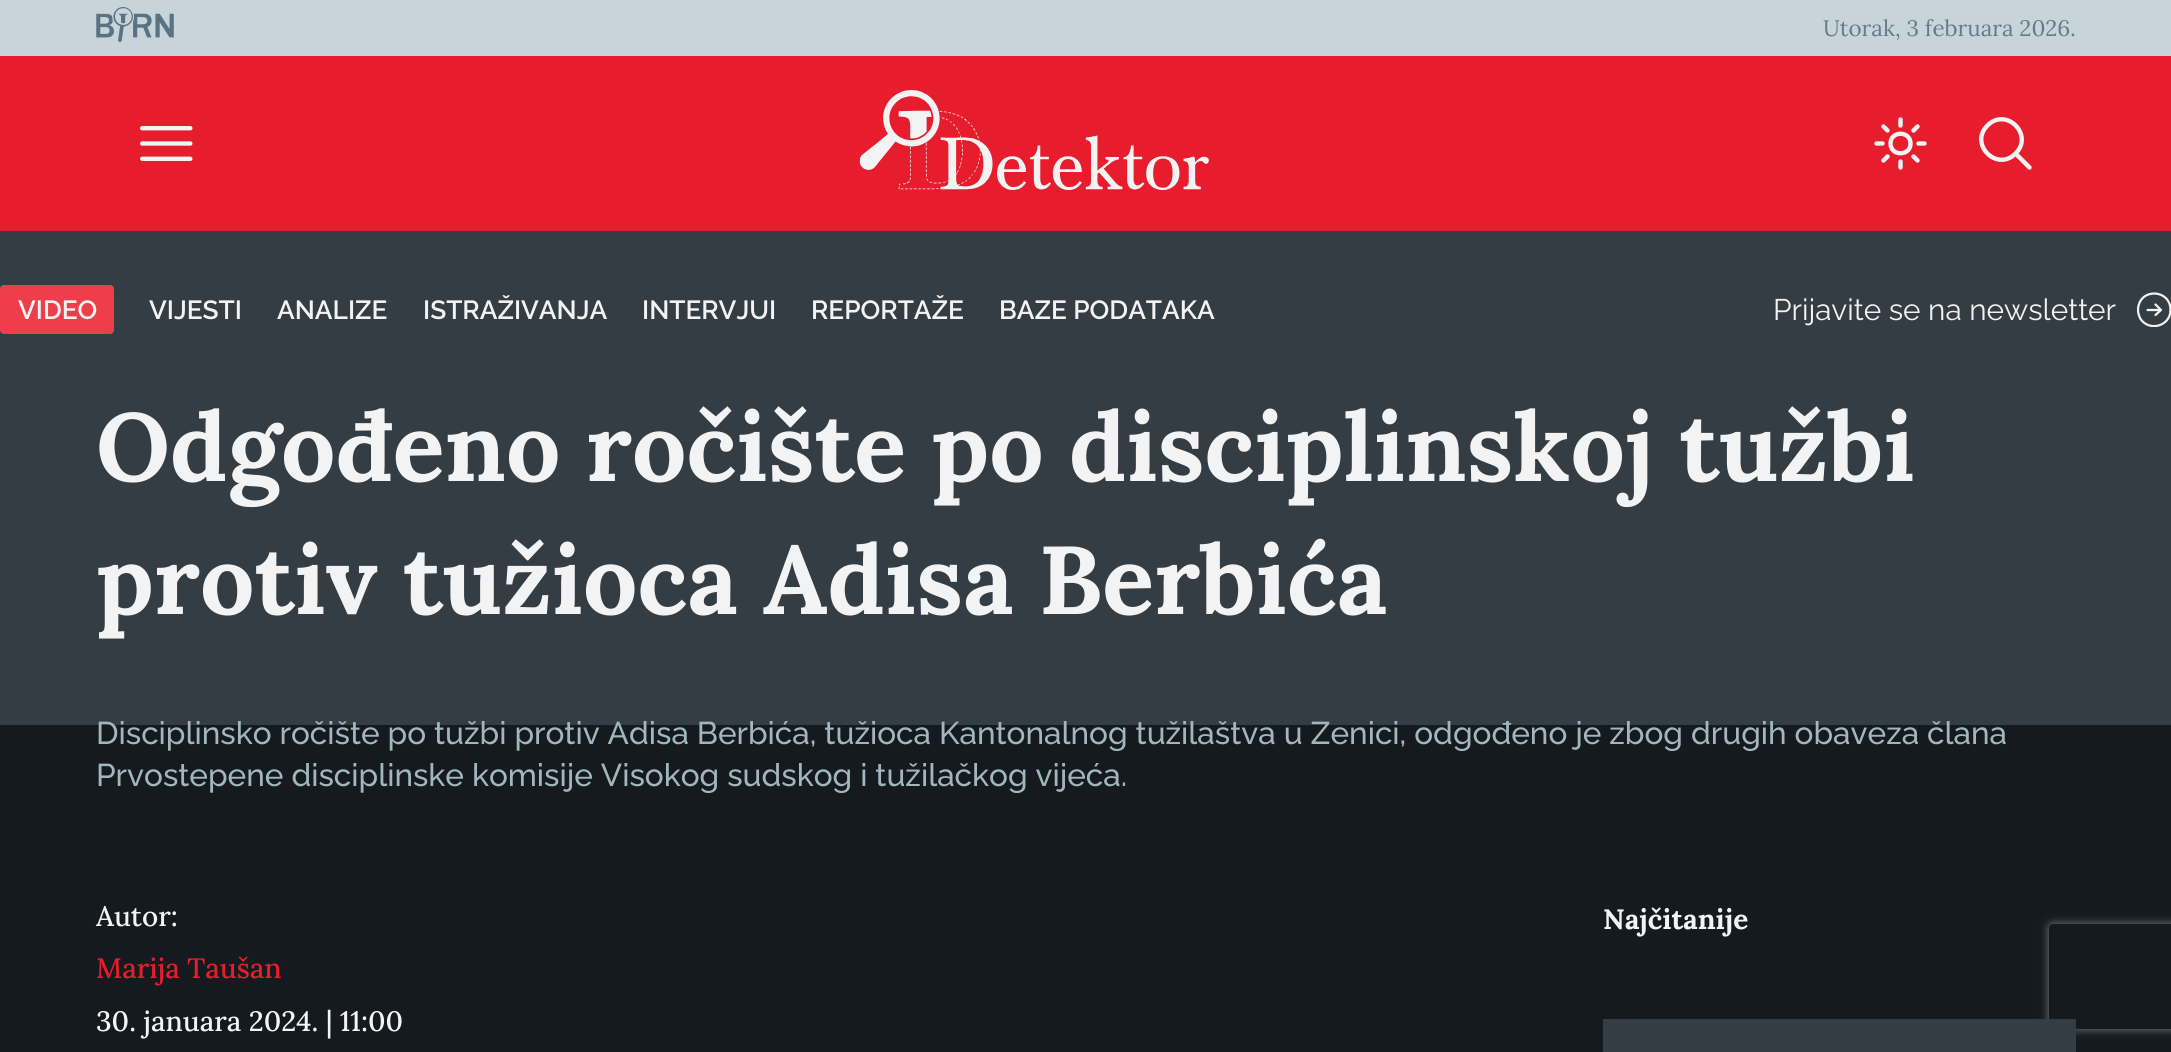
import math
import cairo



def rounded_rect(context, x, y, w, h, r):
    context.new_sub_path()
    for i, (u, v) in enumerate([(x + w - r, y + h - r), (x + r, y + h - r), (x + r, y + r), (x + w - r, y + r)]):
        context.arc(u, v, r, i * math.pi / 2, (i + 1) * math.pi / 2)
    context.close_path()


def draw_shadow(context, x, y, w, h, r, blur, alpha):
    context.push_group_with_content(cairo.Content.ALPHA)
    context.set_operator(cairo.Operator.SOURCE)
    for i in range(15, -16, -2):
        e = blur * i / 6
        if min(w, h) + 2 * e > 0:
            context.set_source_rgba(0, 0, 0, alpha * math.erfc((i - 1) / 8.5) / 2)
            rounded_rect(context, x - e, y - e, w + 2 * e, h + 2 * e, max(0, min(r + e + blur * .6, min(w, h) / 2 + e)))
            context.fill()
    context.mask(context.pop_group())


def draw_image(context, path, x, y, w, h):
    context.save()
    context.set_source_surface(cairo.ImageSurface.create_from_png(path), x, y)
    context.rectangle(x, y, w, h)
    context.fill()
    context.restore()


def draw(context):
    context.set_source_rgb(21 / 255, 26 / 255, 30 / 255)
    context.paint()
    context.set_source_rgb(53 / 255, 61 / 255, 68 / 255)
    context.rectangle(0, 231, 2171, 494)
    context.fill()
    context.set_source_rgb(199 / 255, 213 / 255, 218 / 255)
    context.rectangle(0, 0, 2171, 56)
    context.fill()
    draw_image(context, "images/1.png", 96, 7, 78, 35)
    context.set_source_rgb(231 / 255, 29 / 255, 45 / 255)
    context.rectangle(0, 56, 2171, 175)
    context.fill()
    draw_image(context, "images/2.png", 140, 126, 53, 35)
    draw_image(context, "images/3.png", 859, 90, 350, 100)
    context.new_path()
    context.move_to(1900.5, 119.5)
    context.line_to(1900.5, 125.5)
    context.move_to(1917.5, 126.5)
    context.line_to(1913.5, 130.5)
    context.move_to(1924.5, 143.5)
    context.line_to(1918.5, 143.5)
    context.move_to(1917.5, 160.5)
    context.line_to(1913.5, 156.5)
    context.move_to(1900.5, 161.5)
    context.line_to(1900.5, 167.5)
    context.move_to(1887.5, 156.5)
    context.line_to(1883.5, 160.5)
    context.move_to(1882.5, 143.5)
    context.line_to(1876.5, 143.5)
    context.move_to(1887.5, 130.5)
    context.line_to(1883.5, 126.5)
    context.move_to(1910.5, 143.5)
    context.curve_to(1910.5, 156.5, 1890.5, 156.5, 1890.5, 143.5)
    context.curve_to(1890.5, 130.5, 1910.5, 130.5, 1910.5, 143.5)
    context.close_path()
    context.set_source_rgb(243 / 255, 243 / 255, 244 / 255)
    context.set_line_width(4.4)
    context.set_line_cap(cairo.LineCap.ROUND)
    context.set_line_join(cairo.LineJoin.ROUND)
    context.stroke()
    context.new_path()
    context.move_to(2029.5, 167.5)
    context.line_to(2015.5, 153.5)
    context.move_to(2015.5, 153.5)
    context.curve_to(2034.5, 135, 2006, 106.5, 1987.5, 125.5)
    context.curve_to(1968.5, 144, 1997, 172.5, 2015.5, 153.5)
    context.close_path()
    context.stroke()
    context.set_source_rgb(239 / 255, 62 / 255, 75 / 255)
    rounded_rect(context, 0, 285, 114, 49, 4)
    context.fill()
    context.save()
    context.rectangle(2137, 292, 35, 35)
    context.clip()
    context.new_path()
    context.move_to(2155.5, 315)
    context.line_to(2161, 310)
    context.move_to(2161, 310)
    context.line_to(2155.5, 304.5)
    context.move_to(2161, 310)
    context.line_to(2147.5, 310)
    context.move_to(2170.5, 310)
    context.curve_to(2170.5, 326, 2149.5, 332, 2140.5, 319)
    context.curve_to(2139, 316, 2138, 313, 2138, 310)
    context.curve_to(2138.5, 287.5, 2170.5, 288.5, 2170.5, 310)
    context.close_path()
    context.set_source_rgb(243 / 255, 243 / 255, 244 / 255)
    context.set_line_width(2.2)
    context.stroke()
    context.restore()
    context.save()
    context.set_fill_rule(cairo.FillRule.EVEN_ODD)
    context.new_path()
    context.move_to(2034, 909)
    context.line_to(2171, 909)
    context.line_to(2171, 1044)
    context.line_to(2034, 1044)
    context.close_path()
    context.move_to(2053, 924)
    context.line_to(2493, 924)
    context.curve_to(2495, 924, 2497, 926, 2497, 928)
    context.line_to(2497, 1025)
    context.curve_to(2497, 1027, 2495, 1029, 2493, 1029)
    context.line_to(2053, 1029)
    context.curve_to(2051, 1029, 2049, 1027, 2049, 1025)
    context.line_to(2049, 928)
    context.curve_to(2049, 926, 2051, 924, 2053, 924)
    context.close_path()
    context.clip()
    context.set_source_rgb(128 / 255, 128 / 255, 128 / 255)
    draw_shadow(context, 2049, 924, 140, 105, 4, 4.5, 1)
    context.restore()
    context.set_source_rgb(53 / 255, 61 / 255, 68 / 255)
    context.rectangle(1603, 1019, 473, 33)
    context.fill()
    context.select_font_face("Lora")
    context.set_font_size(22.4)
    context.set_source_rgb(101 / 255, 124 / 255, 133 / 255)
    context.move_to(1823, 36)
    context.show_text("Utorak, 3 februara 2026.")
    context.select_font_face("Raleway SemiBold")
    context.set_font_size(26.25)
    context.set_source_rgb(243 / 255, 243 / 255, 244 / 255)
    context.move_to(18, 319)
    context.show_text("VIDEO")
    context.move_to(149, 319)
    context.show_text("VIJESTI")
    context.move_to(277, 319)
    context.show_text("ANALIZE")
    context.move_to(423, 319)
    context.show_text("ISTRAŽIVANJA")
    context.move_to(642, 319)
    context.show_text("INTERVJUI")
    context.move_to(811, 319)
    context.show_text("REPORTAŽE")
    context.move_to(999, 319)
    context.show_text("BAZE PODATAKA")
    context.select_font_face("Raleway")
    context.set_font_size(29.75)
    context.move_to(1773, 320)
    context.show_text("Prijavite se na newsletter")
    context.select_font_face("Lora", cairo.FontSlant.NORMAL, cairo.FontWeight.BOLD)
    context.set_font_size(96.25)
    context.move_to(96, 481)
    context.show_text("Odgođeno ročište po disciplinskoj tužbi")
    context.move_to(96, 614)
    context.show_text("protiv tužioca Adisa Berbića")
    context.select_font_face("Raleway Medium")
    context.set_font_size(31.5)
    context.set_source_rgb(161 / 255, 182 / 255, 191 / 255)
    context.move_to(96, 744)
    context.show_text("Disciplinsko ročište po tužbi protiv Adisa Berbića, tužioca Kantonalnog tužilaštva u Zenici, odgođeno je zbog drugih obaveza člana")
    context.move_to(96, 786)
    context.show_text("Prvostepene disciplinske komisije Visokog sudskog i tužilačkog vijeća.")
    context.select_font_face("Lora Medium")
    context.set_font_size(28)
    context.set_source_rgb(243 / 255, 243 / 255, 244 / 255)
    context.move_to(96, 926)
    context.show_text("Autor:")
    context.set_source_rgb(231 / 255, 29 / 255, 45 / 255)
    context.move_to(96, 978)
    context.show_text("Marija Taušan")
    context.set_source_rgb(243 / 255, 243 / 255, 244 / 255)
    context.move_to(96, 1031)
    context.show_text("30. januara 2024. | 11:00")
    context.select_font_face("Lora", cairo.FontSlant.NORMAL, cairo.FontWeight.BOLD)
    context.move_to(1603, 929)
    context.show_text("Najčitanije")


surface = cairo.ImageSurface(cairo.Format.RGB24, 2171, 1052)
context = cairo.Context(surface)
options = cairo.FontOptions()
options.set_hint_metrics(cairo.HintMetrics.OFF)
options.set_hint_style(cairo.HintStyle.NONE)
context.set_font_options(options)
context.set_miter_limit(4)
draw(context)
surface.write_to_png("out.png")
